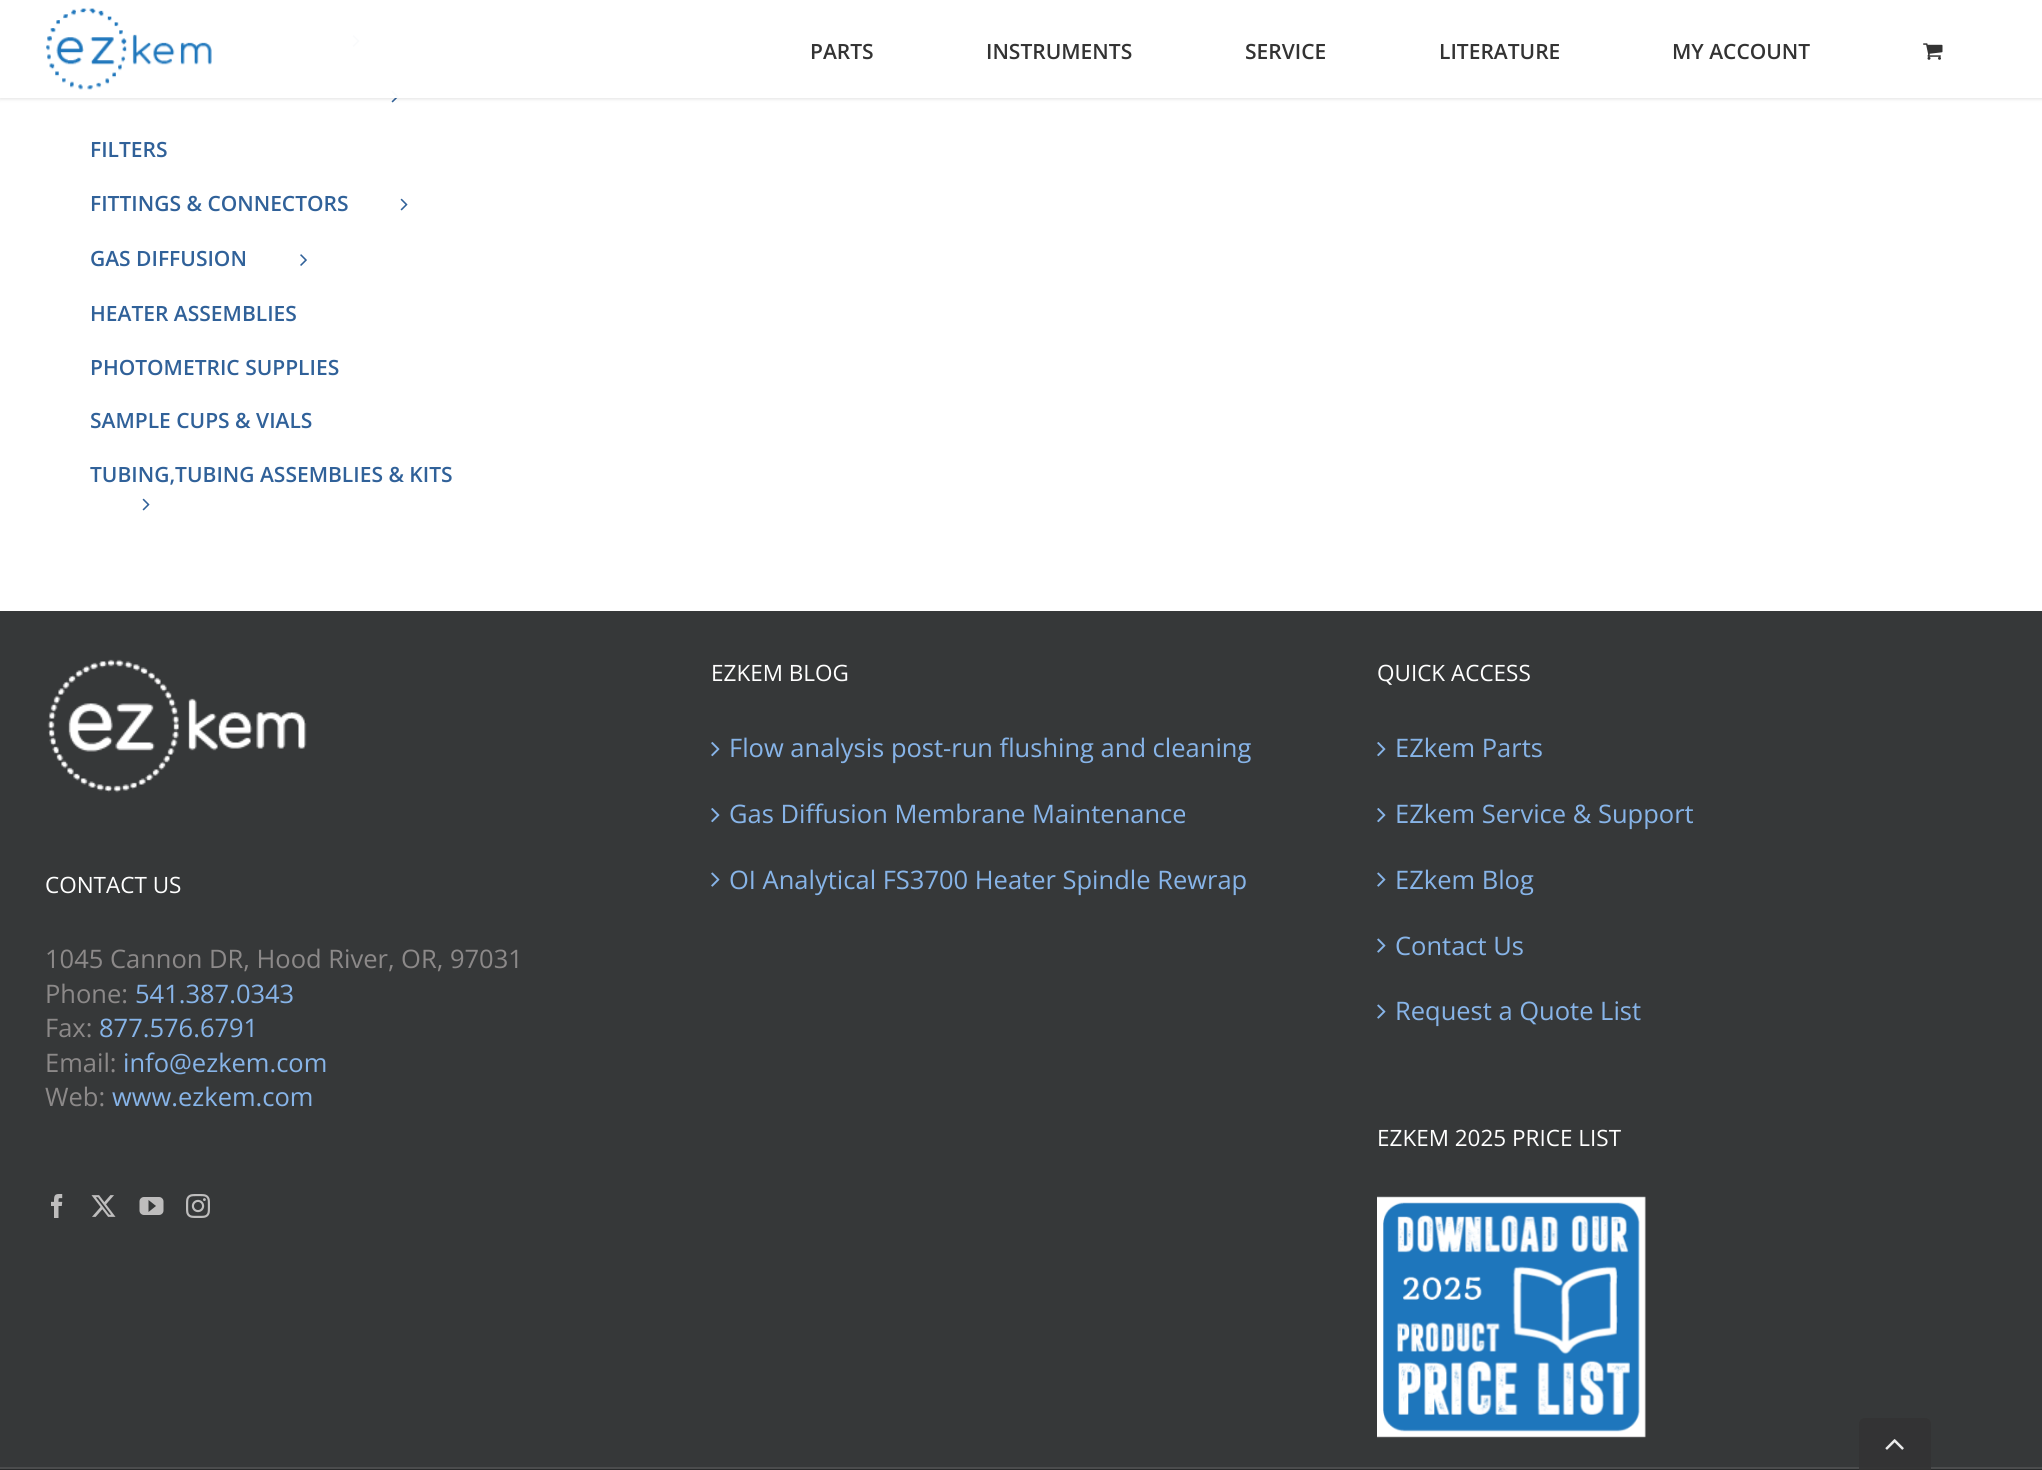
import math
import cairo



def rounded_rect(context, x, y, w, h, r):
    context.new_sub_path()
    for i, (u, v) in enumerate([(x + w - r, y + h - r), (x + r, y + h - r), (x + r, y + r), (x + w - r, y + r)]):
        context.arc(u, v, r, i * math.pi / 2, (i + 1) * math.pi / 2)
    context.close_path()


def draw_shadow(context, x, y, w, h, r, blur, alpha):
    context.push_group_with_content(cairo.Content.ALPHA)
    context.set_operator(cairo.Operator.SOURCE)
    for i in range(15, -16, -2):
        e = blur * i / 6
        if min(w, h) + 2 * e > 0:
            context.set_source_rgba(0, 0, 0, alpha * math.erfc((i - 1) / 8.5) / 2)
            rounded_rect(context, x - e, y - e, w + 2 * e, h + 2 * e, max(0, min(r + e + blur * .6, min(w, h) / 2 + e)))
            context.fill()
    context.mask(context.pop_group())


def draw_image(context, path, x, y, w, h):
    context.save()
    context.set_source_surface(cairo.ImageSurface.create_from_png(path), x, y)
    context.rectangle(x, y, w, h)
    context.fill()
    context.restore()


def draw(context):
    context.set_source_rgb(1, 1, 1)
    context.paint()
    draw_image(context, "images/3.png", 352, 35, 8, 12)
    draw_image(context, "images/4.png", 391, 90, 8, 13)
    context.save()
    context.set_fill_rule(cairo.FillRule.EVEN_ODD)
    context.new_path()
    context.move_to(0, 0)
    context.line_to(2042, 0)
    context.line_to(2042, 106)
    context.line_to(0, 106)
    context.close_path()
    context.move_to(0, 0)
    context.line_to(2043, 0)
    context.line_to(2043, 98)
    context.line_to(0, 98)
    context.close_path()
    context.clip()
    context.set_source_rgb(0, 0, 0)
    draw_shadow(context, 0, 2, 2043, 97, 0, 2, 0.12)
    context.restore()
    context.set_source_rgba(1, 1, 1, 0.97)
    context.rectangle(0, 35, 2042, 63)
    context.fill()
    draw_image(context, "images/1.png", 46, 8, 166, 82)
    draw_image(context, "images/2.png", 1923, 43, 20, 17)
    draw_image(context, "images/4.png", 400, 198, 8, 13)
    draw_image(context, "images/5.png", 300, 254, 7, 12)
    draw_image(context, "images/4.png", 142, 498, 8, 13)
    context.set_source_rgb(54 / 255, 56 / 255, 57 / 255)
    context.rectangle(0, 611, 2042, 856)
    context.fill()
    draw_image(context, "images/6.png", 47, 659, 260, 134)
    draw_image(context, "images/7.png", 51, 1194, 12, 24)
    draw_image(context, "images/8.png", 91, 1195, 25, 22)
    draw_image(context, "images/9.png", 139, 1197, 25, 18)
    draw_image(context, "images/10.png", 186, 1194, 24, 24)
    draw_image(context, "images/11.png", 711, 742, 9, 15)
    draw_image(context, "images/11.png", 711, 808, 9, 15)
    draw_image(context, "images/12.png", 711, 872, 9, 15)
    draw_image(context, "images/11.png", 1377, 742, 9, 15)
    draw_image(context, "images/11.png", 1377, 808, 9, 15)
    draw_image(context, "images/12.png", 1377, 872, 9, 15)
    draw_image(context, "images/12.png", 1377, 938, 9, 15)
    draw_image(context, "images/12.png", 1377, 1004, 9, 15)
    draw_image(context, "images/13.png", 1377, 1196, 269, 242)
    context.set_source_rgb(40 / 255, 42 / 255, 43 / 255)
    context.rectangle(0, 1469, 2042, 1)
    context.fill()
    context.set_source_rgb(75 / 255, 76 / 255, 77 / 255)
    context.rectangle(0, 1467, 2042, 2)
    context.fill()
    context.set_source_rgba(51 / 255, 51 / 255, 51 / 255, 0.9)
    context.new_path()
    context.move_to(1865, 1418)
    context.line_to(1925, 1418)
    context.curve_to(1928.5, 1418, 1931, 1420.5, 1931, 1424)
    context.line_to(1931, 1470)
    context.line_to(1859, 1470)
    context.line_to(1859, 1424)
    context.curve_to(1859, 1420.5, 1861.5, 1418, 1865, 1418)
    context.close_path()
    context.fill()
    draw_image(context, "images/14.png", 1885, 1439, 19, 11)
    context.select_font_face("Open Sans SemiBold")
    context.set_font_size(21)
    context.set_source_rgb(51 / 255, 51 / 255, 51 / 255)
    context.move_to(810, 59)
    context.show_text("PARTS")
    context.move_to(986, 59)
    context.show_text("INSTRUMENTS")
    context.move_to(1245, 59)
    context.show_text("SERVICE")
    context.move_to(1439, 59)
    context.show_text("LITERATURE")
    context.move_to(1672, 59)
    context.show_text("MY ACCOUNT")
    context.set_source_rgb(48 / 255, 97 / 255, 153 / 255)
    context.move_to(90, 157)
    context.show_text("FILTERS")
    context.move_to(90, 211)
    context.show_text("FITTINGS & CONNECTORS")
    context.move_to(90, 266)
    context.show_text("GAS DIFFUSION")
    context.move_to(90, 321)
    context.show_text("HEATER ASSEMBLIES")
    context.move_to(90, 375)
    context.show_text("PHOTOMETRIC SUPPLIES")
    context.move_to(90, 428)
    context.show_text("SAMPLE CUPS & VIALS")
    context.move_to(90, 482)
    context.show_text("TUBING,TUBING ASSEMBLIES & KITS")
    context.select_font_face("Open Sans")
    context.set_font_size(22.5)
    context.set_source_rgb(1, 1, 1)
    context.move_to(45, 893)
    context.show_text("CONTACT US")
    context.set_font_size(25.5)
    context.set_source_rgb(140 / 255, 137 / 255, 137 / 255)
    context.move_to(45, 968)
    context.show_text("1045 Cannon DR, Hood River, OR, 97031")
    context.move_to(45, 1003)
    context.show_text("Phone:")
    context.set_source_rgb(135 / 255, 180 / 255, 232 / 255)
    context.move_to(135, 1003)
    context.show_text("541.387.0343")
    context.set_source_rgb(140 / 255, 137 / 255, 137 / 255)
    context.move_to(45, 1037)
    context.show_text("Fax:")
    context.set_source_rgb(135 / 255, 180 / 255, 232 / 255)
    context.move_to(99, 1037)
    context.show_text("877.576.6791")
    context.set_source_rgb(140 / 255, 137 / 255, 137 / 255)
    context.move_to(45, 1072)
    context.show_text("Email:")
    context.set_source_rgb(135 / 255, 180 / 255, 232 / 255)
    context.move_to(123, 1072)
    context.show_text("info@ezkem.com")
    context.set_source_rgb(140 / 255, 137 / 255, 137 / 255)
    context.move_to(45, 1106)
    context.show_text("Web:")
    context.set_source_rgb(135 / 255, 180 / 255, 232 / 255)
    context.move_to(112, 1106)
    context.show_text("www.ezkem.com")
    context.set_font_size(22.5)
    context.set_source_rgb(1, 1, 1)
    context.move_to(711, 681)
    context.show_text("EZKEM BLOG")
    context.set_font_size(25.5)
    context.set_source_rgb(135 / 255, 180 / 255, 232 / 255)
    context.move_to(729, 757)
    context.show_text("Flow analysis post-run flushing and cleaning")
    context.move_to(729, 823)
    context.show_text("Gas Diffusion Membrane Maintenance")
    context.move_to(729, 889)
    context.show_text("OI Analytical FS3700 Heater Spindle Rewrap")
    context.set_font_size(22.5)
    context.set_source_rgb(1, 1, 1)
    context.move_to(1377, 681)
    context.show_text("QUICK ACCESS")
    context.set_font_size(25.5)
    context.set_source_rgb(135 / 255, 180 / 255, 232 / 255)
    context.move_to(1395, 757)
    context.show_text("EZkem Parts")
    context.move_to(1395, 823)
    context.show_text("EZkem Service & Support")
    context.move_to(1395, 889)
    context.show_text("EZkem Blog")
    context.move_to(1395, 955)
    context.show_text("Contact Us")
    context.move_to(1395, 1020)
    context.show_text("Request a Quote List")
    context.set_font_size(22.5)
    context.set_source_rgb(1, 1, 1)
    context.move_to(1377, 1146)
    context.show_text("EZKEM 2025 PRICE LIST")


surface = cairo.ImageSurface(cairo.Format.RGB24, 2042, 1470)
context = cairo.Context(surface)
options = cairo.FontOptions()
options.set_hint_metrics(cairo.HintMetrics.OFF)
options.set_hint_style(cairo.HintStyle.NONE)
context.set_font_options(options)
context.set_miter_limit(4)
draw(context)
surface.write_to_png("out.png")
